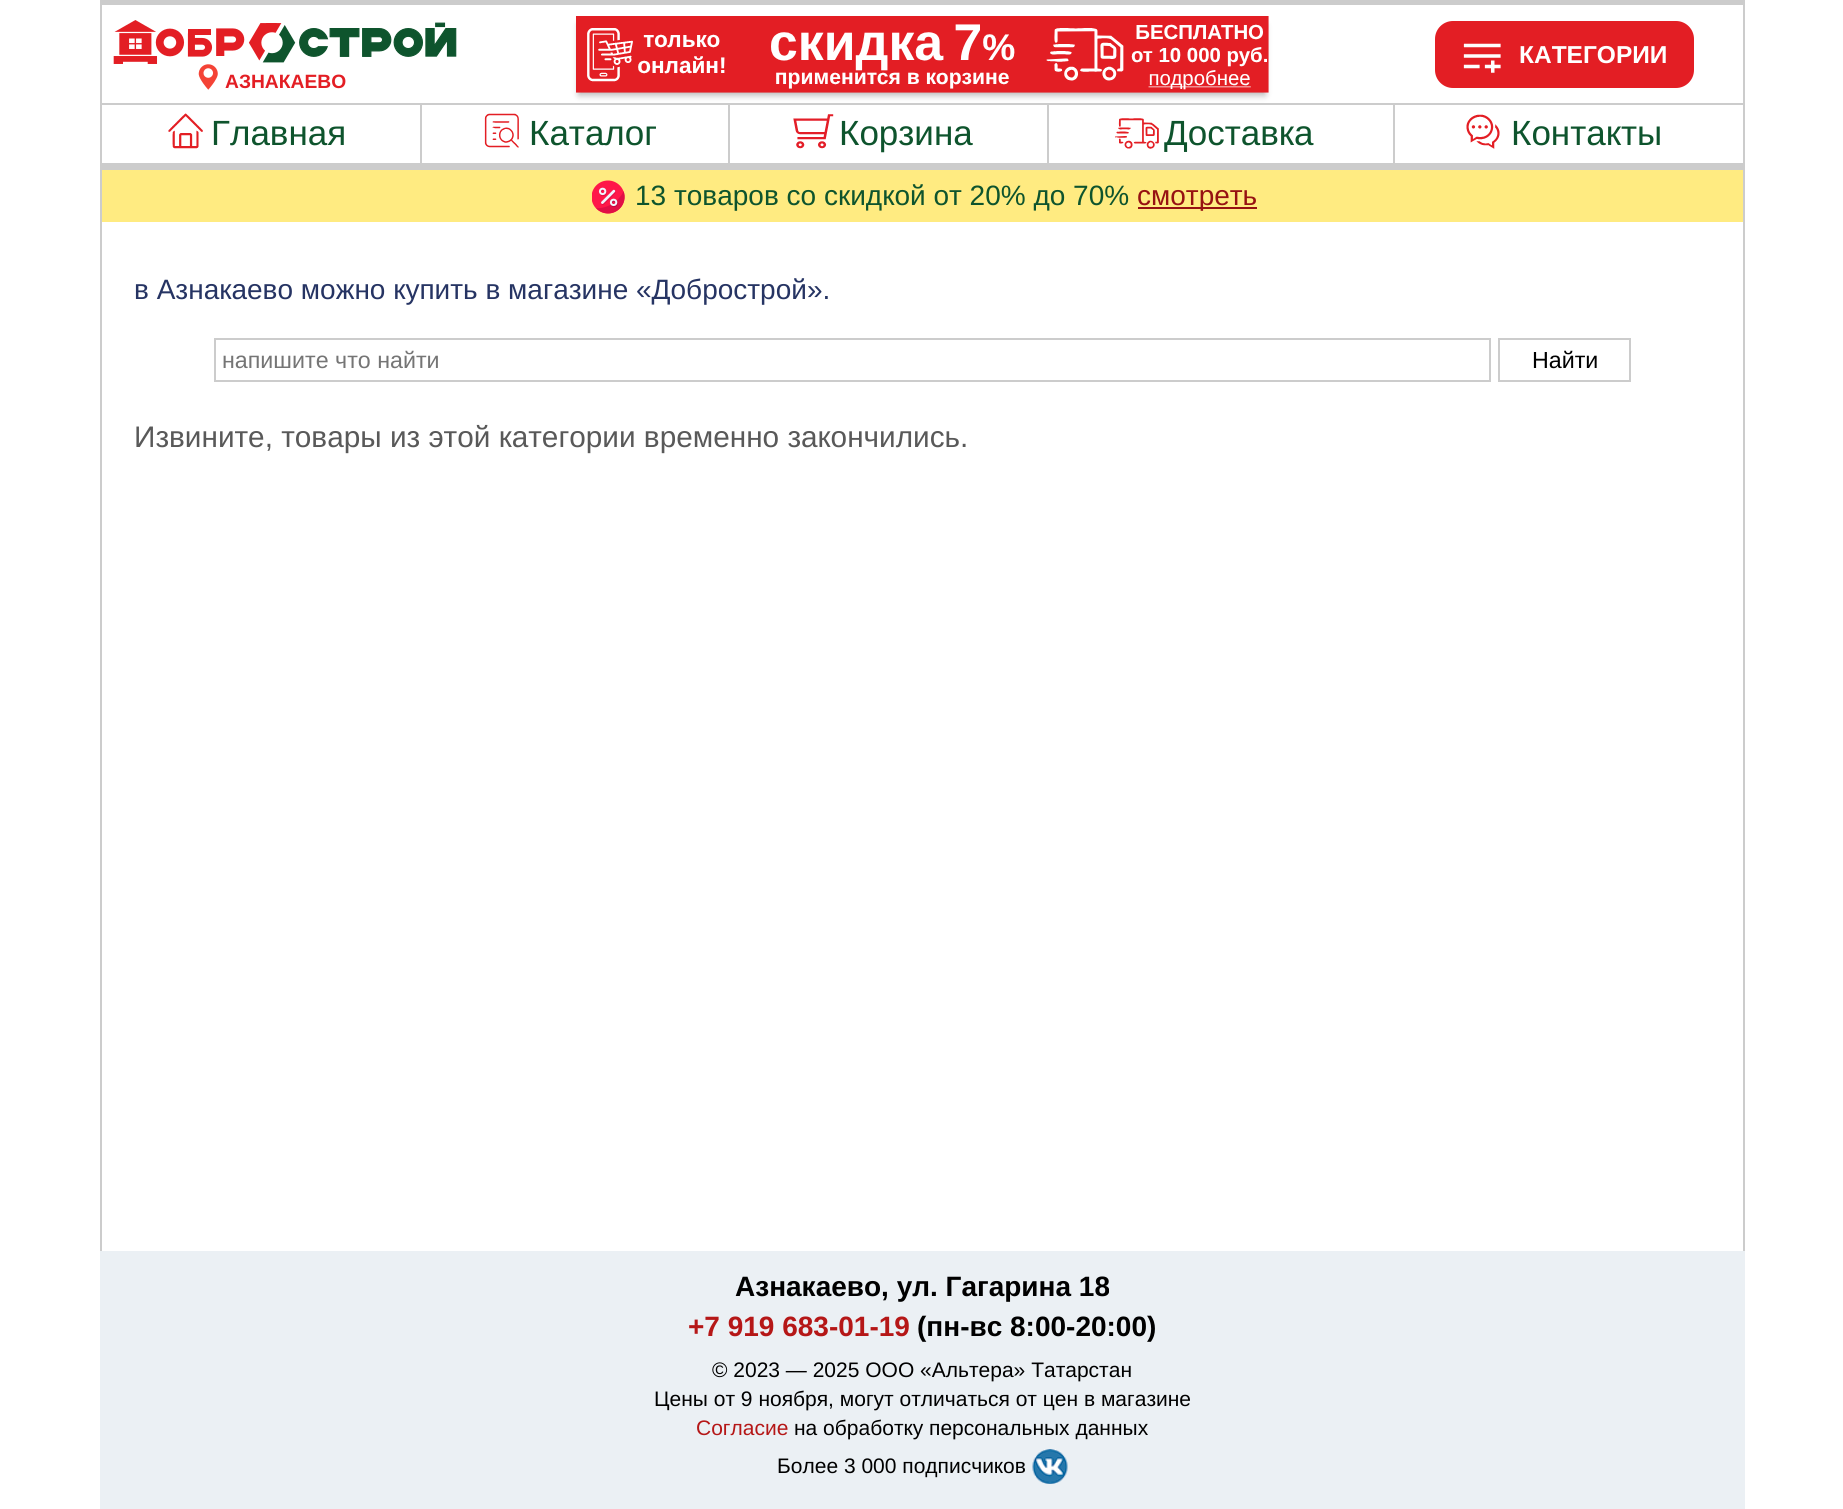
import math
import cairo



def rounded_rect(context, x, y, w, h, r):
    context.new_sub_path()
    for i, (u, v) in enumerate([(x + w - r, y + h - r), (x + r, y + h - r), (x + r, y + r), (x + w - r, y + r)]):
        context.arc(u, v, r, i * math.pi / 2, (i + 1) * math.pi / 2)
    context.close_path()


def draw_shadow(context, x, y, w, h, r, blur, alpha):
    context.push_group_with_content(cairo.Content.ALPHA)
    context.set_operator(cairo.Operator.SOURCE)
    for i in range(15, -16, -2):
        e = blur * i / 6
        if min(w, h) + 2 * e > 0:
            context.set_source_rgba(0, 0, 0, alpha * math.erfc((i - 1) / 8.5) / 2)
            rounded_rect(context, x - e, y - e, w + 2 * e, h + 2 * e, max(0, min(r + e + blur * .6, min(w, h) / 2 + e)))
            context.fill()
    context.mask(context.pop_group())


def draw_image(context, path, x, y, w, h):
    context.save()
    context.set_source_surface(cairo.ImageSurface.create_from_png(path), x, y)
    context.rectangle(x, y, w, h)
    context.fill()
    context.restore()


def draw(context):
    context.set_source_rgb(1, 1, 1)
    context.paint()
    context.set_source_rgb(204 / 255, 204 / 255, 204 / 255)
    context.rectangle(102, 103, 1641, 2)
    context.fill()
    context.rectangle(728, 105, 2, 58)
    context.fill()
    context.rectangle(1047, 105, 2, 58)
    context.fill()
    context.set_source_rgb(0, 0, 0)
    draw_shadow(context, 579, 25, 686, 70, 0, 3.5, 0.3)
    draw_image(context, "images/1.png", 576, 16, 693, 77)
    context.set_source_rgb(204 / 255, 204 / 255, 204 / 255)
    context.rectangle(100, 0, 1645, 5)
    context.fill()
    context.rectangle(1743, 0, 2, 1251)
    context.fill()
    context.rectangle(100, 165, 1645, 5)
    context.fill()
    context.rectangle(100, 0, 2, 1251)
    context.fill()
    context.set_source_rgb(227 / 255, 30 / 255, 36 / 255)
    rounded_rect(context, 1435, 21, 259, 67, 18)
    context.fill()
    draw_image(context, "images/2.png", 1463, 43, 38, 30)
    draw_image(context, "images/3.png", 113, 20, 344, 44)
    draw_image(context, "images/4.png", 198, 64, 20, 26)
    context.set_source_rgb(204 / 255, 204 / 255, 204 / 255)
    context.rectangle(102, 163, 1641, 2)
    context.fill()
    context.rectangle(420, 105, 2, 58)
    context.fill()
    draw_image(context, "images/5.png", 168, 113, 35, 36)
    draw_image(context, "images/6.png", 484, 113, 35, 35)
    draw_image(context, "images/7.png", 793, 114, 41, 35)
    context.rectangle(1393, 105, 2, 58)
    context.fill()
    draw_image(context, "images/8.png", 1115, 118, 44, 31)
    draw_image(context, "images/9.png", 1466, 114, 34, 35)
    context.set_source_rgb(1, 235 / 255, 129 / 255)
    context.rectangle(102, 170, 1641, 52)
    context.fill()
    draw_image(context, "images/10.png", 592, 180, 33, 34)
    context.set_source_rgb(150 / 255, 18 / 255, 18 / 255)
    context.rectangle(1138, 207, 119, 2)
    context.fill()
    context.rectangle(215, 339, 1275, 42)
    context.set_source_rgb(204 / 255, 204 / 255, 204 / 255)
    context.stroke()
    context.rectangle(1499, 339, 131, 42)
    context.stroke()
    context.set_source_rgb(235 / 255, 240 / 255, 244 / 255)
    context.rectangle(100, 1251, 1645, 258)
    context.fill()
    draw_image(context, "images/11.png", 1032, 1449, 36, 35)
    context.select_font_face("Liberation Sans", cairo.FontSlant.NORMAL, cairo.FontWeight.BOLD)
    context.set_font_size(24.5)
    context.set_source_rgb(1, 1, 1)
    context.move_to(1519, 63)
    context.show_text("КАТЕГОРИИ")
    context.set_font_size(19.25)
    context.set_source_rgb(227 / 255, 30 / 255, 36 / 255)
    context.move_to(225, 88)
    context.show_text("АЗНАКАЕВО")
    context.select_font_face("Liberation Sans")
    context.set_font_size(35)
    context.set_source_rgb(14 / 255, 84 / 255, 45 / 255)
    context.move_to(211, 145)
    context.show_text("Главная")
    context.move_to(529, 145)
    context.show_text("Каталог")
    context.move_to(839, 145)
    context.show_text("Корзина")
    context.move_to(1164, 145)
    context.show_text("Доставка")
    context.move_to(1511, 145)
    context.show_text("Контакты")
    context.set_font_size(28)
    context.move_to(635, 205)
    context.show_text("13 товаров со скидкой от 20% до 70%")
    context.set_source_rgb(150 / 255, 18 / 255, 18 / 255)
    context.move_to(1137, 205)
    context.show_text("смотреть")
    context.set_source_rgb(38 / 255, 52 / 255, 99 / 255)
    context.move_to(134, 299)
    context.show_text("в Азнакаево можно купить в магазине «Добрострой».")
    context.set_font_size(23.25)
    context.set_source_rgb(117 / 255, 117 / 255, 117 / 255)
    context.move_to(222, 368)
    context.show_text("напишите что найти")
    context.set_source_rgb(0, 0, 0)
    context.move_to(1532, 368)
    context.show_text("Найти")
    context.set_font_size(29.75)
    context.set_source_rgb(89 / 255, 89 / 255, 89 / 255)
    context.move_to(134, 447)
    context.show_text("Извините, товары из этой категории временно закончились.")
    context.select_font_face("Liberation Sans", cairo.FontSlant.NORMAL, cairo.FontWeight.BOLD)
    context.set_font_size(28)
    context.set_source_rgb(0, 0, 0)
    context.move_to(735, 1296)
    context.show_text("Азнакаево, ул. Гагарина 18")
    context.set_source_rgb(181 / 255, 23 / 255, 23 / 255)
    context.move_to(688, 1336)
    context.show_text("+7 919 683-01-19")
    context.set_source_rgb(0, 0, 0)
    context.move_to(917, 1336)
    context.show_text("(пн-вс 8:00-20:00)")
    context.select_font_face("Liberation Sans")
    context.set_font_size(21)
    context.move_to(712, 1377)
    context.show_text("© 2023 — 2025 ООО «Альтера» Татарстан")
    context.move_to(654, 1406)
    context.show_text("Цены от 9 ноября, могут отличаться от цен в магазине")
    context.set_source_rgb(181 / 255, 23 / 255, 23 / 255)
    context.move_to(696, 1435)
    context.show_text("Согласие")
    context.set_source_rgb(0, 0, 0)
    context.move_to(794, 1435)
    context.show_text("на обработку персональных данных")
    context.move_to(777, 1473)
    context.show_text("Более 3 000 подписчиков")


surface = cairo.ImageSurface(cairo.Format.RGB24, 1843, 1509)
context = cairo.Context(surface)
options = cairo.FontOptions()
options.set_hint_metrics(cairo.HintMetrics.OFF)
options.set_hint_style(cairo.HintStyle.NONE)
context.set_font_options(options)
context.set_miter_limit(4)
draw(context)
surface.write_to_png("out.png")
